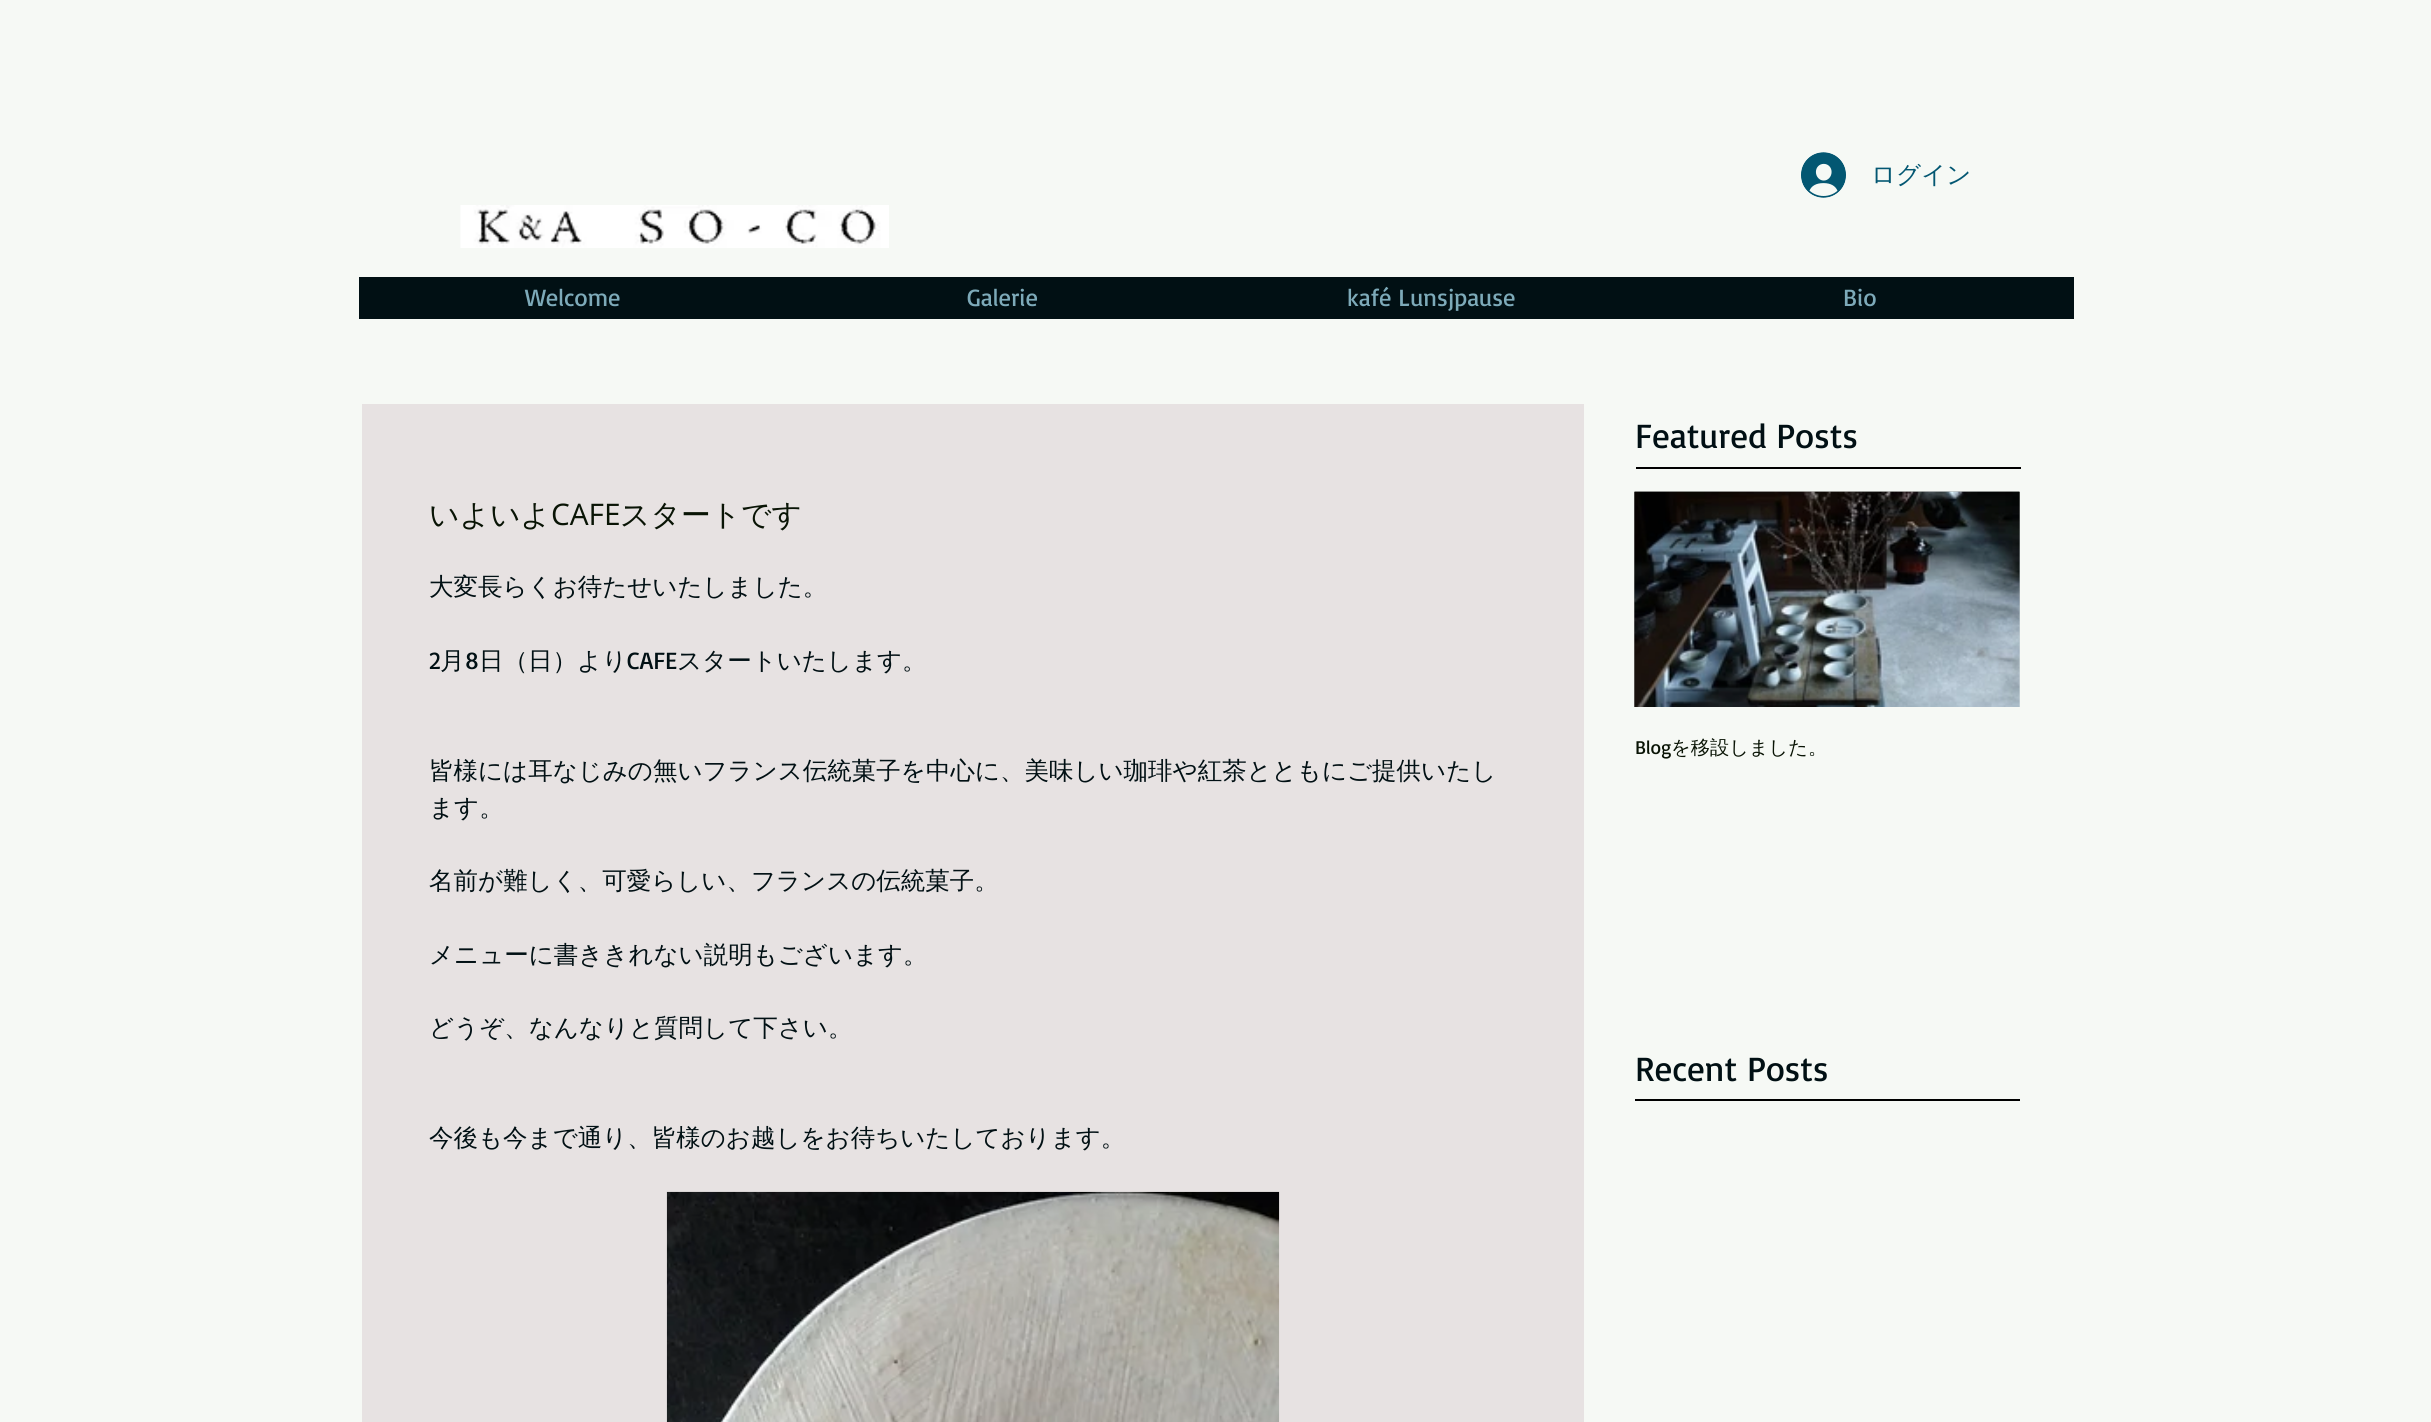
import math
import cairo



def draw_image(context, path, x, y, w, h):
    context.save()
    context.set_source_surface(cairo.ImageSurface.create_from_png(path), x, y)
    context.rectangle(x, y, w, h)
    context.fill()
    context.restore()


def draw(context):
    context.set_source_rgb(246 / 255, 249 / 255, 245 / 255)
    context.paint()
    draw_image(context, "images/1.png", 1801, 152, 45, 46)
    draw_image(context, "images/2.png", 460, 205, 429, 43)
    context.set_source_rgb(1 / 255, 16 / 255, 20 / 255)
    context.rectangle(359, 277, 1715, 42)
    context.fill()
    context.set_source_rgb(0, 0, 0)
    context.rectangle(1636, 467, 385, 2)
    context.fill()
    context.set_source_rgb(231 / 255, 226 / 255, 226 / 255)
    context.rectangle(362, 404, 1222, 1018)
    context.fill()
    draw_image(context, "images/3.png", 666, 1191, 614, 231)
    draw_image(context, "images/4.png", 1634, 491, 386, 216)
    draw_image(context, "images/5.png", 1634, 491, 386, 216)
    context.set_source_rgb(0, 0, 0)
    context.rectangle(1635, 1099, 385, 2)
    context.fill()
    context.select_font_face("WenQuanYi Zen Hei Medium")
    context.set_font_size(24.5)
    context.set_source_rgb(3 / 255, 87 / 255, 114 / 255)
    context.move_to(1871, 183)
    context.show_text("ログイン")
    context.select_font_face("Basic")
    context.set_source_rgb(125 / 255, 170 / 255, 185 / 255)
    context.move_to(525, 306)
    context.show_text("Welcome")
    context.move_to(967, 306)
    context.show_text("Galerie")
    context.move_to(1347, 306)
    context.show_text("kafé Lunsjpause")
    context.move_to(1843, 306)
    context.show_text("Bio")
    context.set_font_size(35)
    context.set_source_rgb(1 / 255, 16 / 255, 20 / 255)
    context.move_to(1635, 448)
    context.show_text("Featured Posts")
    context.select_font_face("WenQuanYi Zen Hei Medium")
    context.set_font_size(29.75)
    context.set_source_rgb(9 / 255, 20 / 255, 5 / 255)
    context.move_to(429, 525)
    context.show_text("いよいよ")
    context.select_font_face("Open Sans")
    context.move_to(551, 525)
    context.show_text("CAFE")
    context.select_font_face("WenQuanYi Zen Hei Medium")
    context.move_to(620, 525)
    context.show_text("スタートです")
    context.set_font_size(24.5)
    context.set_source_rgb(1 / 255, 16 / 255, 20 / 255)
    context.move_to(429, 595)
    context.show_text("大変長らくお待たせいたしました。")
    context.select_font_face("Basic")
    context.move_to(429, 669)
    context.show_text("2")
    context.select_font_face("WenQuanYi Zen Hei Medium")
    context.move_to(440, 669)
    context.show_text("月")
    context.select_font_face("Basic")
    context.move_to(465, 669)
    context.show_text("8")
    context.select_font_face("WenQuanYi Zen Hei Medium")
    context.move_to(479, 669)
    context.show_text("日（日）より")
    context.select_font_face("Basic")
    context.move_to(627, 669)
    context.show_text("CAFE")
    context.select_font_face("WenQuanYi Zen Hei Medium")
    context.move_to(677, 669)
    context.show_text("スタートいたします。")
    context.move_to(429, 779)
    context.show_text("皆様には耳なじみの無いフランス伝統菓子を中心に、美味しい珈琲や紅茶とともにご提供いたし")
    context.move_to(429, 816)
    context.show_text("ます。")
    context.move_to(429, 889)
    context.show_text("名前が難しく、可愛らしい、フランスの伝統菓子。")
    context.move_to(429, 963)
    context.show_text("メニューに書ききれない説明もございます。")
    context.move_to(429, 1036)
    context.show_text("どうぞ、なんなりと質問して下さい。")
    context.move_to(429, 1146)
    context.show_text("今後も今まで通り、皆様のお越しをお待ちいたしております。")
    context.select_font_face("Basic")
    context.set_font_size(19.25)
    context.set_source_rgb(9 / 255, 20 / 255, 5 / 255)
    context.move_to(1635, 754)
    context.show_text("Blog")
    context.select_font_face("WenQuanYi Zen Hei Medium")
    context.move_to(1671, 754)
    context.show_text("を移設しました。")
    context.select_font_face("Basic")
    context.set_font_size(35)
    context.set_source_rgb(1 / 255, 16 / 255, 20 / 255)
    context.move_to(1635, 1081)
    context.show_text("Recent Posts")


surface = cairo.ImageSurface(cairo.Format.RGB24, 2431, 1422)
context = cairo.Context(surface)
options = cairo.FontOptions()
options.set_hint_metrics(cairo.HintMetrics.OFF)
options.set_hint_style(cairo.HintStyle.NONE)
context.set_font_options(options)
context.set_miter_limit(4)
draw(context)
surface.write_to_png("out.png")
